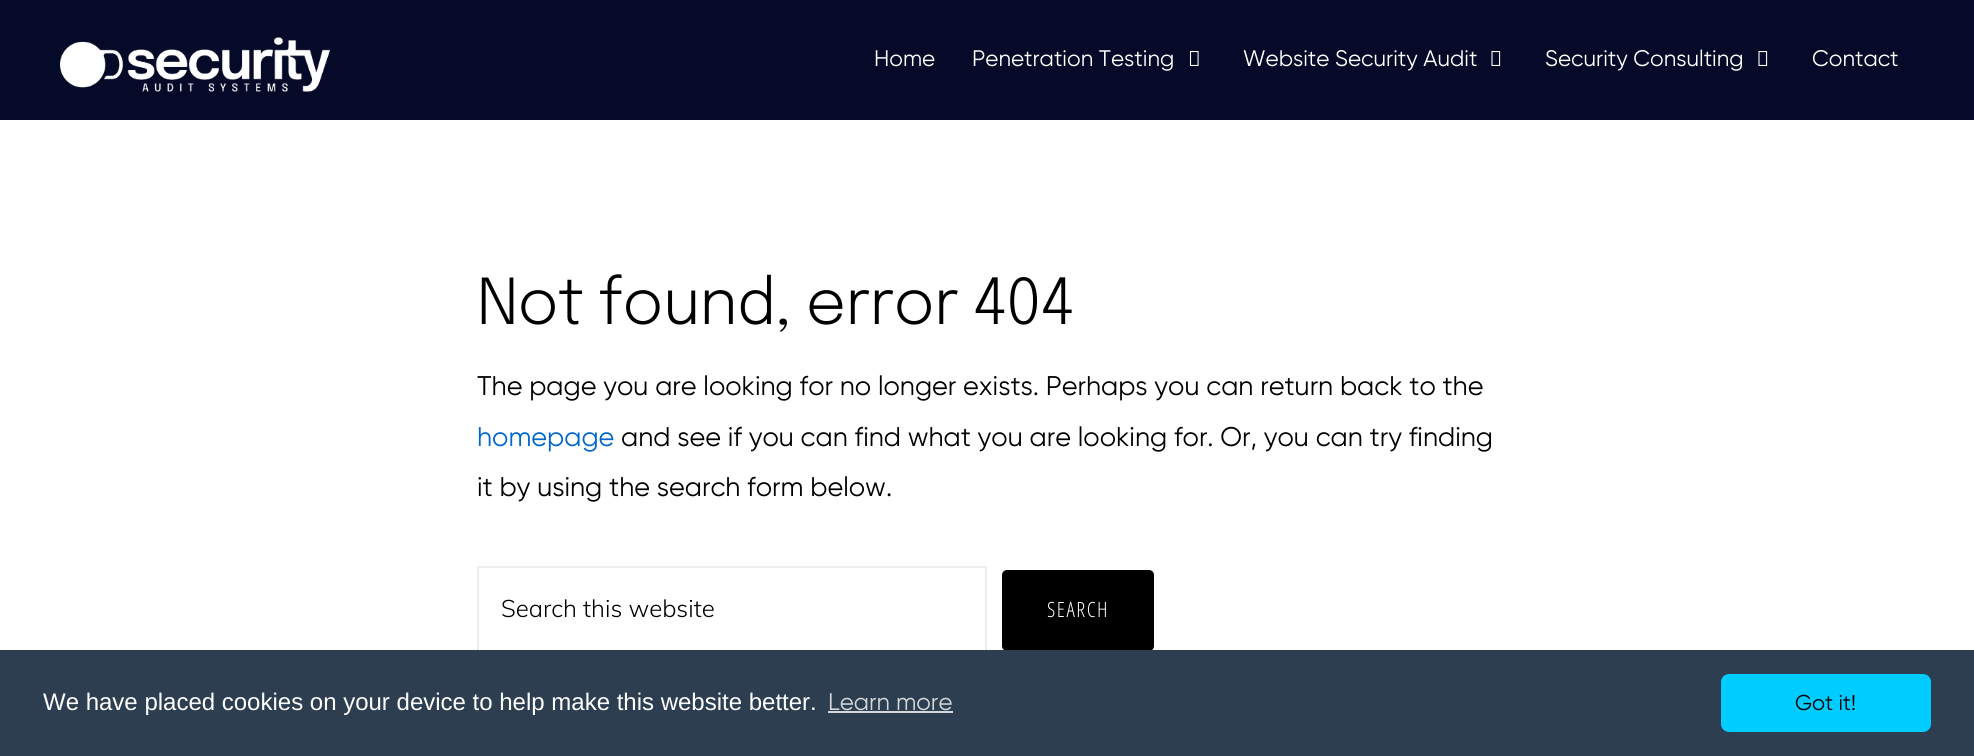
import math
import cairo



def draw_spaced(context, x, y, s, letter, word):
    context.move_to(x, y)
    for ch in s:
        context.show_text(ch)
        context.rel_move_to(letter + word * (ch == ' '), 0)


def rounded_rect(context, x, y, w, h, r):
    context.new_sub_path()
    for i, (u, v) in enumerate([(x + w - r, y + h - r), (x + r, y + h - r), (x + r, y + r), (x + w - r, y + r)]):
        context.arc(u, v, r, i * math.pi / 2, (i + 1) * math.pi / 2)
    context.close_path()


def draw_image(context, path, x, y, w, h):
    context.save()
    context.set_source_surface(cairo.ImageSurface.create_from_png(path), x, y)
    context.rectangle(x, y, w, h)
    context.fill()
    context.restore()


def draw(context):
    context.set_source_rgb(1, 1, 1)
    context.paint()
    context.set_source_rgb(5 / 255, 10 / 255, 40 / 255)
    context.rectangle(0, 0, 1974, 120)
    context.fill()
    draw_image(context, "images/1.png", 60, 37, 270, 55)
    draw_image(context, "images/2.png", 1189, 51, 10, 15)
    draw_image(context, "images/3.png", 1491, 51, 10, 15)
    draw_image(context, "images/3.png", 1758, 51, 10, 15)
    context.rectangle(478, 567, 508, 85)
    context.set_source_rgb(238 / 255, 238 / 255, 238 / 255)
    context.stroke()
    context.set_source_rgb(0, 0, 0)
    rounded_rect(context, 1002, 570, 152, 81, 5)
    context.fill()
    context.set_source_rgb(44 / 255, 62 / 255, 80 / 255)
    context.rectangle(0, 650, 1974, 106)
    context.fill()
    context.set_source_rgb(213 / 255, 216 / 255, 220 / 255)
    context.rectangle(828, 711, 125, 2)
    context.fill()
    context.set_source_rgb(0, 204 / 255, 1)
    rounded_rect(context, 1721, 674, 210, 58, 8)
    context.fill()
    context.select_font_face("Gilroy")
    context.set_font_size(22.5)
    context.set_source_rgb(1, 1, 1)
    context.move_to(874, 66)
    context.show_text("Home")
    context.move_to(972, 66)
    context.show_text("Penetration Testing")
    context.move_to(1243, 66)
    context.show_text("Website Security Audit")
    context.move_to(1545, 66)
    context.show_text("Security Consulting")
    context.move_to(1812, 66)
    context.show_text("Contact")
    context.select_font_face("Epilogue Light")
    context.set_font_size(63)
    context.set_source_rgb(0, 0, 0)
    draw_spaced(context, 477, 324, "Not found, error 404", -0.75, 0)
    context.select_font_face("Gilroy")
    context.set_font_size(27)
    context.move_to(477, 395)
    context.show_text("The page you are looking for no longer exists. Perhaps you can return back to the")
    context.set_source_rgb(0, 102 / 255, 204 / 255)
    context.move_to(477, 446)
    context.show_text("homepage")
    context.set_source_rgb(0, 0, 0)
    context.move_to(621, 446)
    context.show_text("and see if you can find what you are looking for. Or, you can try finding")
    context.move_to(477, 496)
    context.show_text("it by using the search form below.")
    context.select_font_face("Muli Light")
    context.set_font_size(24)
    context.move_to(501, 617)
    context.show_text("Search this website")
    context.select_font_face("Open Sans Condensed Light")
    context.set_font_size(21)
    context.set_source_rgb(1, 1, 1)
    draw_spaced(context, 1047, 617, "SEARCH", 1.5, 0)
    context.select_font_face("Liberation Sans")
    context.set_font_size(24)
    context.move_to(43, 710)
    context.show_text("We have placed cookies on your device to help make this website better.")
    context.select_font_face("Gilroy")
    context.set_source_rgb(213 / 255, 216 / 255, 220 / 255)
    context.move_to(828, 710)
    context.show_text("Learn more")
    context.set_font_size(21.5)
    context.set_source_rgb(0, 0, 0)
    context.move_to(1795, 710)
    context.show_text("Got it!")


surface = cairo.ImageSurface(cairo.Format.RGB24, 1974, 756)
context = cairo.Context(surface)
options = cairo.FontOptions()
options.set_hint_metrics(cairo.HintMetrics.OFF)
options.set_hint_style(cairo.HintStyle.NONE)
context.set_font_options(options)
context.set_miter_limit(4)
draw(context)
surface.write_to_png("out.png")
